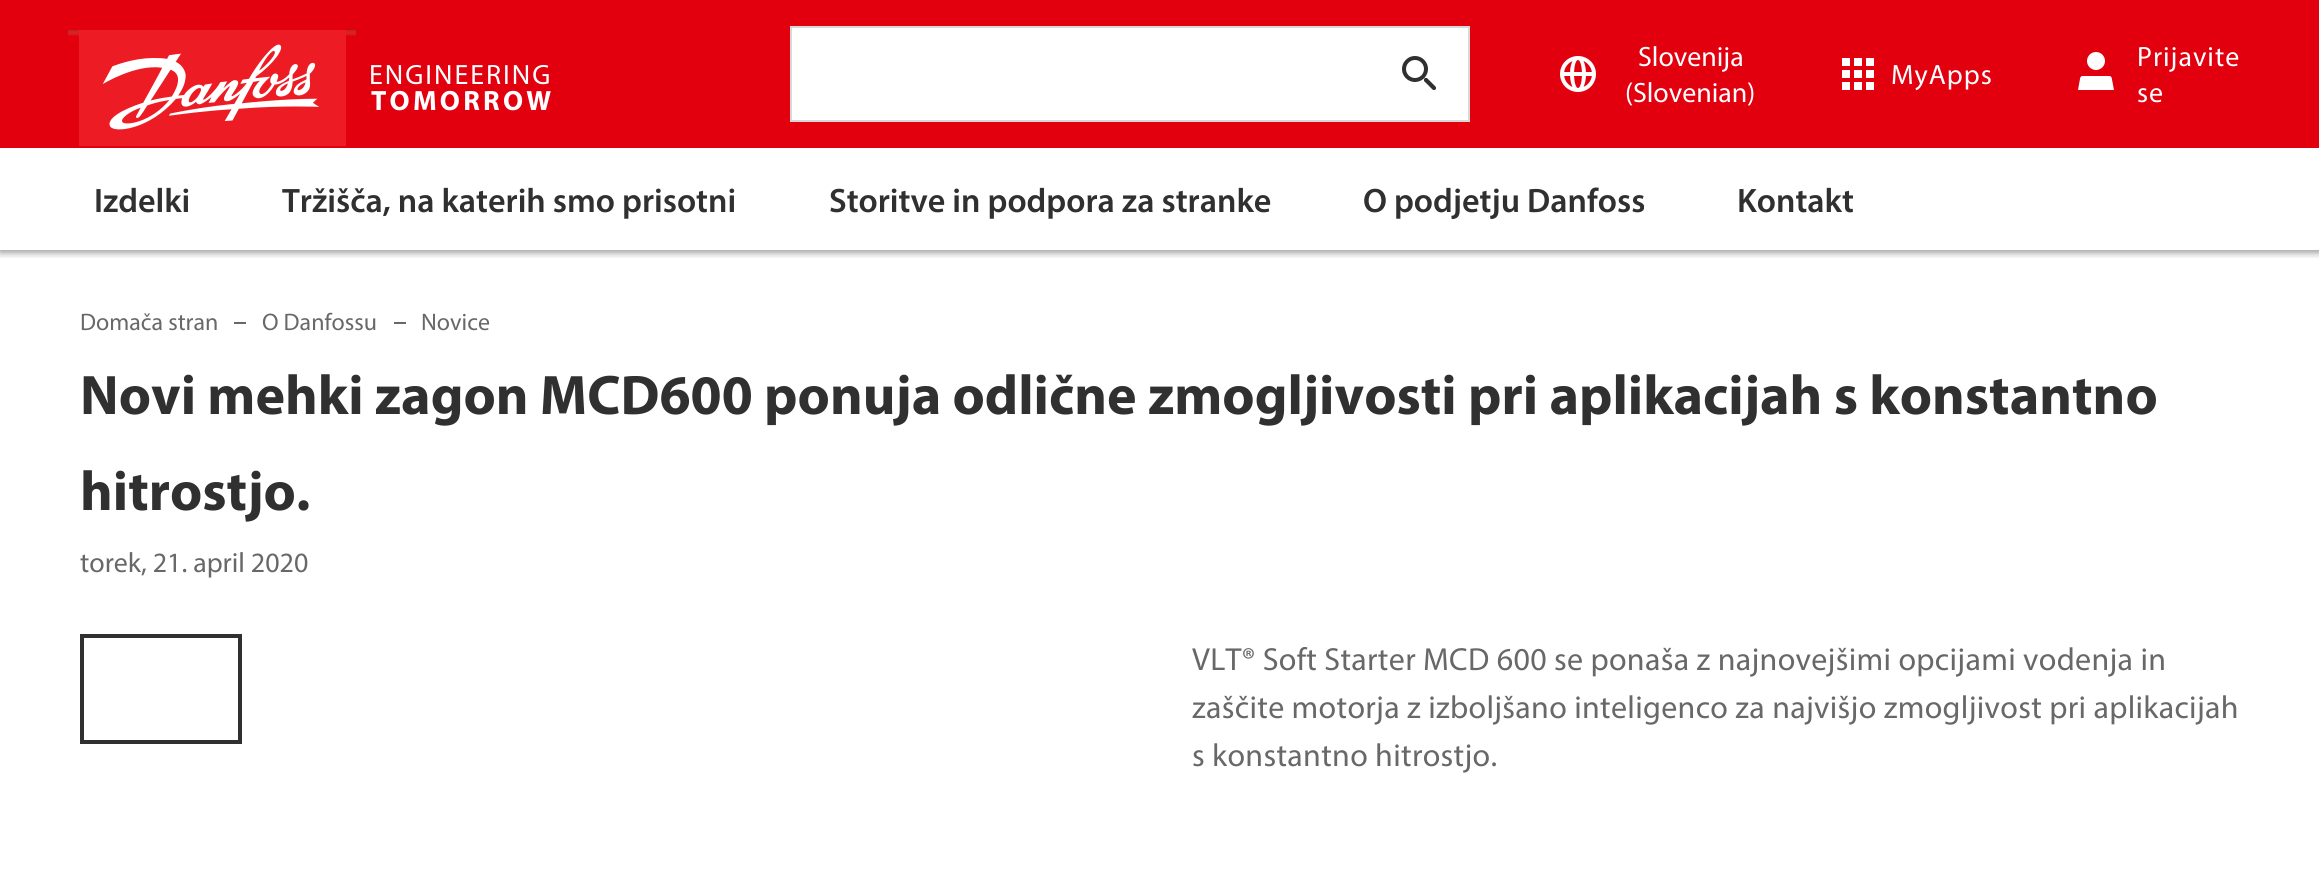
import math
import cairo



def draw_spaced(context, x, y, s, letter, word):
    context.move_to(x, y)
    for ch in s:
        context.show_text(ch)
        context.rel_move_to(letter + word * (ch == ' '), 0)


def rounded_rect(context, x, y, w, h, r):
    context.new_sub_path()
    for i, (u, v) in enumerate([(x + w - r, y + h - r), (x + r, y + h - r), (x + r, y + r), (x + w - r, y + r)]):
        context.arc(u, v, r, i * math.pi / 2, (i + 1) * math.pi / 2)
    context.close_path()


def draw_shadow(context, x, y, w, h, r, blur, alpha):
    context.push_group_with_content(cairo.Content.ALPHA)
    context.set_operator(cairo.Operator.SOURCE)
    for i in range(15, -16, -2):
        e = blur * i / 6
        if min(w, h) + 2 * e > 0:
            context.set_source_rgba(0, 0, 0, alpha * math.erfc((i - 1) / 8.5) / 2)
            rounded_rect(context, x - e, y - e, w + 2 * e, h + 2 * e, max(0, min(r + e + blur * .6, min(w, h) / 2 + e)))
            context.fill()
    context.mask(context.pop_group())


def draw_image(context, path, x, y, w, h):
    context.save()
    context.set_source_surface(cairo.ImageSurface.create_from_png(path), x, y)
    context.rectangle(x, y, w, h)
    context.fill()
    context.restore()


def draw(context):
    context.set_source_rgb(1, 1, 1)
    context.paint()
    context.save()
    context.rectangle(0, 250, 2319, 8)
    context.clip()
    context.set_source_rgb(0, 0, 0)
    draw_shadow(context, 0, 2, 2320, 250, 0, 4, 0.25)
    draw_shadow(context, 0, 150, 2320, 102, 0, 4, 0.25)
    context.restore()
    context.set_source_rgb(226 / 255, 0, 15 / 255)
    context.rectangle(0, 0, 2319, 148)
    context.fill()
    draw_image(context, "images/1.png", 68, 30, 288, 116)
    context.set_source_rgb(1, 1, 1)
    context.rectangle(791, 27, 678, 94)
    context.fill_preserve()
    context.set_source_rgb(216 / 255, 216 / 255, 217 / 255)
    context.stroke()
    draw_image(context, "images/2.png", 1402, 56, 35, 35)
    draw_image(context, "images/3.png", 1560, 56, 36, 36)
    draw_image(context, "images/4.png", 1842, 58, 32, 32)
    draw_image(context, "images/5.png", 2078, 52, 36, 38)
    context.set_source_rgb(104 / 255, 104 / 255, 104 / 255)
    context.rectangle(234, 322, 12, 2)
    context.fill()
    context.rectangle(394, 322, 12, 2)
    context.fill()
    context.rectangle(82, 636, 158, 106)
    context.set_source_rgb(48 / 255, 48 / 255, 48 / 255)
    context.set_line_width(4)
    context.stroke()
    context.select_font_face("Myriad")
    context.set_font_size(28)
    context.set_source_rgb(1, 1, 1)
    draw_spaced(context, 369, 84, "ENGINEERING", 2, 0)
    context.select_font_face("Myriad", cairo.FontSlant.NORMAL, cairo.FontWeight.BOLD)
    draw_spaced(context, 371, 110, "TOMORROW", 3.25, 0)
    context.select_font_face("Myriad")
    context.move_to(1638, 66)
    context.show_text("Slovenija")
    context.move_to(1625, 102)
    context.show_text("(Slovenian)")
    draw_spaced(context, 1891, 84, "MyApps", 1, 0)
    draw_spaced(context, 2137, 66, "Prijavite", 1, 0)
    draw_spaced(context, 2137, 102, "se", 1, 0)
    context.select_font_face("Myriad SemiBold")
    context.set_font_size(34)
    context.set_source_rgb(48 / 255, 48 / 255, 48 / 255)
    context.move_to(94, 212)
    context.show_text("Izdelki")
    context.move_to(282, 212)
    context.show_text("Tržišča, na katerih smo prisotni")
    context.move_to(829, 212)
    context.show_text("Storitve in podpora za stranke")
    context.move_to(1363, 212)
    context.show_text("O podjetju Danfoss")
    context.move_to(1737, 212)
    context.show_text("Kontakt")
    context.select_font_face("Myriad")
    context.set_font_size(24)
    context.set_source_rgb(104 / 255, 104 / 255, 104 / 255)
    context.move_to(80, 330)
    context.show_text("Domača stran")
    context.move_to(262, 330)
    context.show_text("O Danfossu")
    context.move_to(421, 330)
    context.show_text("Novice")
    context.select_font_face("Myriad", cairo.FontSlant.NORMAL, cairo.FontWeight.BOLD)
    context.set_font_size(56)
    context.set_source_rgb(48 / 255, 48 / 255, 48 / 255)
    context.move_to(80, 414)
    context.show_text("Novi mehki zagon MCD600 ponuja odlične zmogljivosti pri aplikacijah s konstantno")
    context.move_to(80, 510)
    context.show_text("hitrostjo.")
    context.select_font_face("Myriad")
    context.set_font_size(28)
    context.set_source_rgb(104 / 255, 104 / 255, 104 / 255)
    context.move_to(80, 572)
    context.show_text("torek, 21. april 2020")
    context.set_font_size(32)
    draw_spaced(context, 1192, 670, "VLT® Soft Starter MCD 600 se ponaša z najnovejšimi opcijami vodenja in", 0.32, 0)
    draw_spaced(context, 1192, 718, "zaščite motorja z izboljšano inteligenco za najvišjo zmogljivost pri aplikacijah", 0.32, 0)
    draw_spaced(context, 1192, 766, "s konstantno hitrostjo.", 0.32, 0)


surface = cairo.ImageSurface(cairo.Format.RGB24, 2319, 871)
context = cairo.Context(surface)
options = cairo.FontOptions()
options.set_hint_metrics(cairo.HintMetrics.OFF)
options.set_hint_style(cairo.HintStyle.NONE)
context.set_font_options(options)
context.set_miter_limit(4)
draw(context)
surface.write_to_png("out.png")
